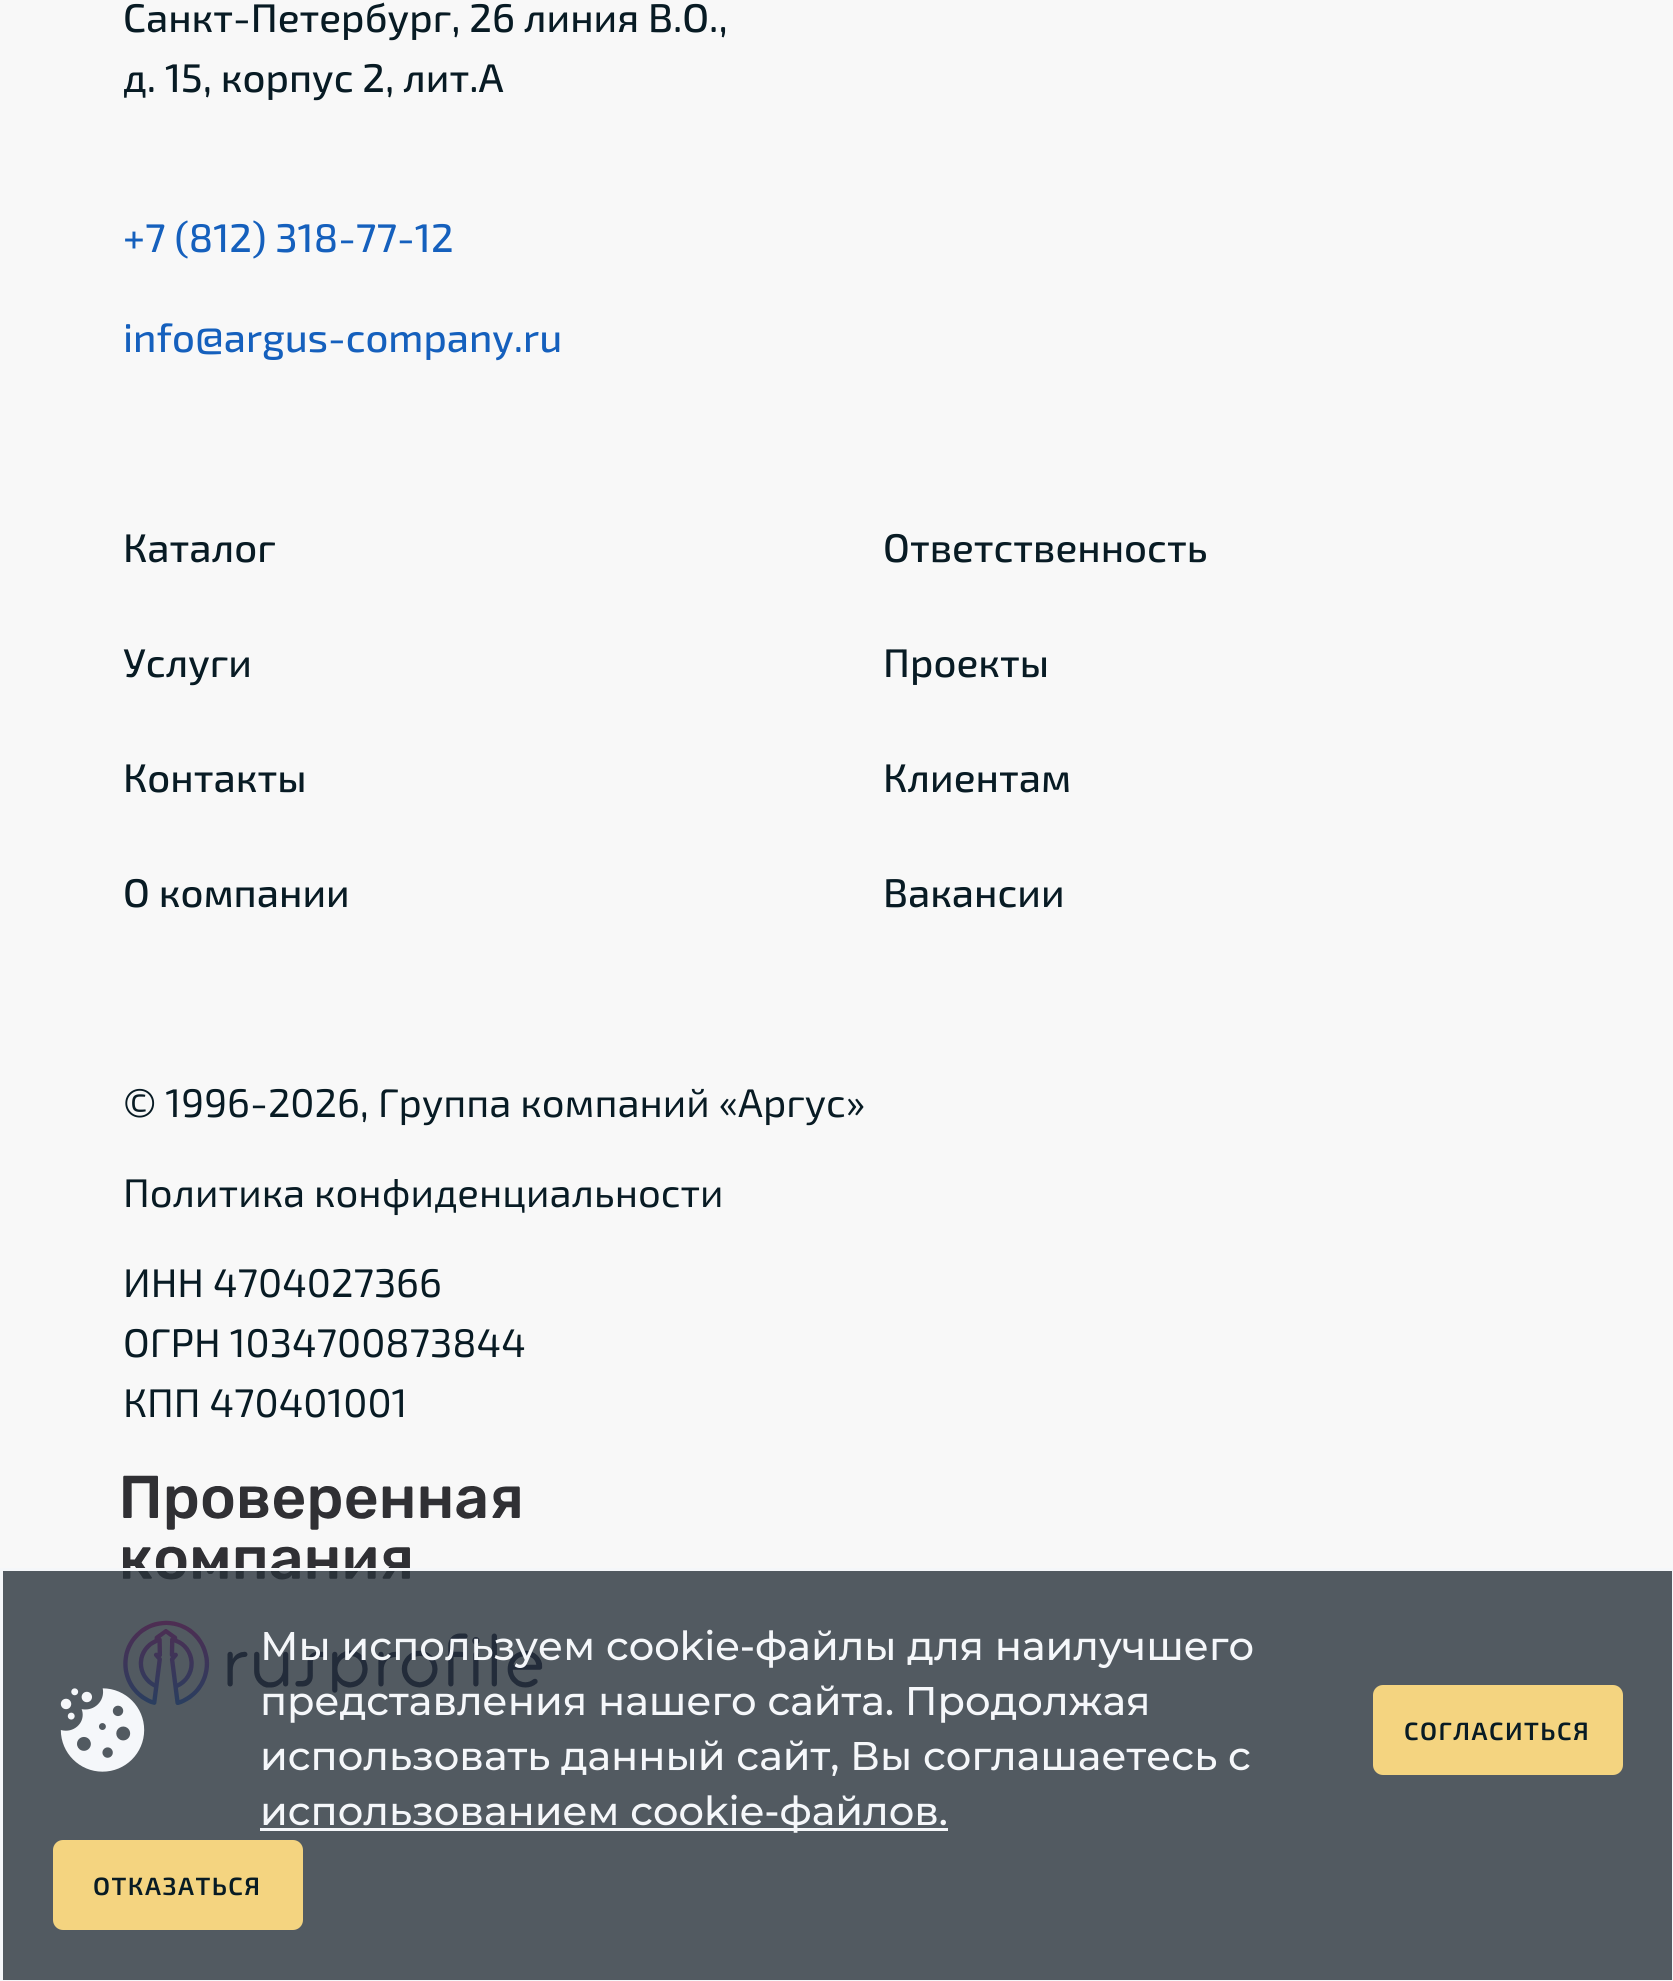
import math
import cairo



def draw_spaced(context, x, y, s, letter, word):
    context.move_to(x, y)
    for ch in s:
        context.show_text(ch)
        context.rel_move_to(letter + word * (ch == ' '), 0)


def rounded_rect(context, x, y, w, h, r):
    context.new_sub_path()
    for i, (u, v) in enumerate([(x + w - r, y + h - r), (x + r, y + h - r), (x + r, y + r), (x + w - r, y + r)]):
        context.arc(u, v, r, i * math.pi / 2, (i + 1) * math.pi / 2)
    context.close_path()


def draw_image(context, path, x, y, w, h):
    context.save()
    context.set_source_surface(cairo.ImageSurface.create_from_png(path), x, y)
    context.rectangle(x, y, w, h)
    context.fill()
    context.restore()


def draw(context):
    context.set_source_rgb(248 / 255, 248 / 255, 248 / 255)
    context.paint()
    draw_image(context, "images/1.png", 123, 1475, 420, 230)
    context.set_source_rgba(40 / 255, 50 / 255, 59 / 255, 0.8)
    context.rectangle(1.5, 1569.5, 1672, 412)
    context.fill_preserve()
    context.set_source_rgb(245 / 255, 247 / 255, 250 / 255)
    context.set_line_width(3)
    context.stroke()
    draw_image(context, "images/2.png", 60, 1688, 85, 84)
    context.rectangle(260, 1828, 688, 3)
    context.fill()
    context.set_source_rgb(244 / 255, 212 / 255, 128 / 255)
    rounded_rect(context, 1373, 1685, 250, 90, 10)
    context.fill()
    rounded_rect(context, 53, 1840, 250, 90, 10)
    context.fill()
    context.select_font_face("Exo 2 Medium")
    context.set_font_size(40)
    context.set_source_rgb(8 / 255, 27 / 255, 36 / 255)
    context.move_to(123, 32)
    context.show_text("Санкт-Петербург, 26 линия В.О.,")
    context.move_to(123, 92)
    context.show_text("д. 15, корпус 2, лит.А")
    context.set_source_rgb(21 / 255, 96 / 255, 189 / 255)
    context.move_to(123, 252)
    context.show_text("+7 (812) 318-77-12")
    context.move_to(123, 352)
    context.show_text("info@argus-company.ru")
    context.set_source_rgb(8 / 255, 27 / 255, 36 / 255)
    context.move_to(123, 562)
    context.show_text("Каталог")
    context.move_to(883, 562)
    context.show_text("Ответственность")
    context.move_to(123, 677)
    context.show_text("Услуги")
    context.move_to(883, 677)
    context.show_text("Проекты")
    context.move_to(123, 792)
    context.show_text("Контакты")
    context.move_to(883, 792)
    context.show_text("Клиентам")
    context.move_to(123, 907)
    context.show_text("О компании")
    context.move_to(883, 907)
    context.show_text("Вакансии")
    context.select_font_face("Exo 2")
    context.move_to(123, 1117)
    context.show_text("© 1996-2026, Группа компаний «Аргус»")
    context.move_to(123, 1207)
    context.show_text("Политика конфиденциальности")
    context.move_to(123, 1297)
    context.show_text("ИНН 4704027366")
    context.move_to(123, 1357)
    context.show_text("ОГРН 1034700873844")
    context.move_to(123, 1417)
    context.show_text("КПП 470401001")
    context.select_font_face("Montserrat Medium")
    context.set_source_rgb(245 / 255, 247 / 255, 250 / 255)
    context.move_to(260, 1660)
    context.show_text("Мы используем cookie-файлы для наилучшего")
    context.move_to(260, 1715)
    context.show_text("представления нашего сайта. Продолжая")
    context.move_to(260, 1770)
    context.show_text("использовать данный сайт, Вы соглашаетесь с")
    context.move_to(260, 1825)
    context.show_text("использованием cookie-файлов.")
    context.select_font_face("Exo 2 SemiBold")
    context.set_font_size(25)
    context.set_source_rgb(8 / 255, 27 / 255, 36 / 255)
    draw_spaced(context, 1404, 1740, "СОГЛАСИТЬСЯ", 1.5, 0)
    draw_spaced(context, 93, 1895, "ОТКАЗАТЬСЯ", 1.5, 0)


surface = cairo.ImageSurface(cairo.Format.RGB24, 1673, 1981)
context = cairo.Context(surface)
options = cairo.FontOptions()
options.set_hint_metrics(cairo.HintMetrics.OFF)
options.set_hint_style(cairo.HintStyle.NONE)
context.set_font_options(options)
context.set_miter_limit(4)
draw(context)
surface.write_to_png("out.png")
